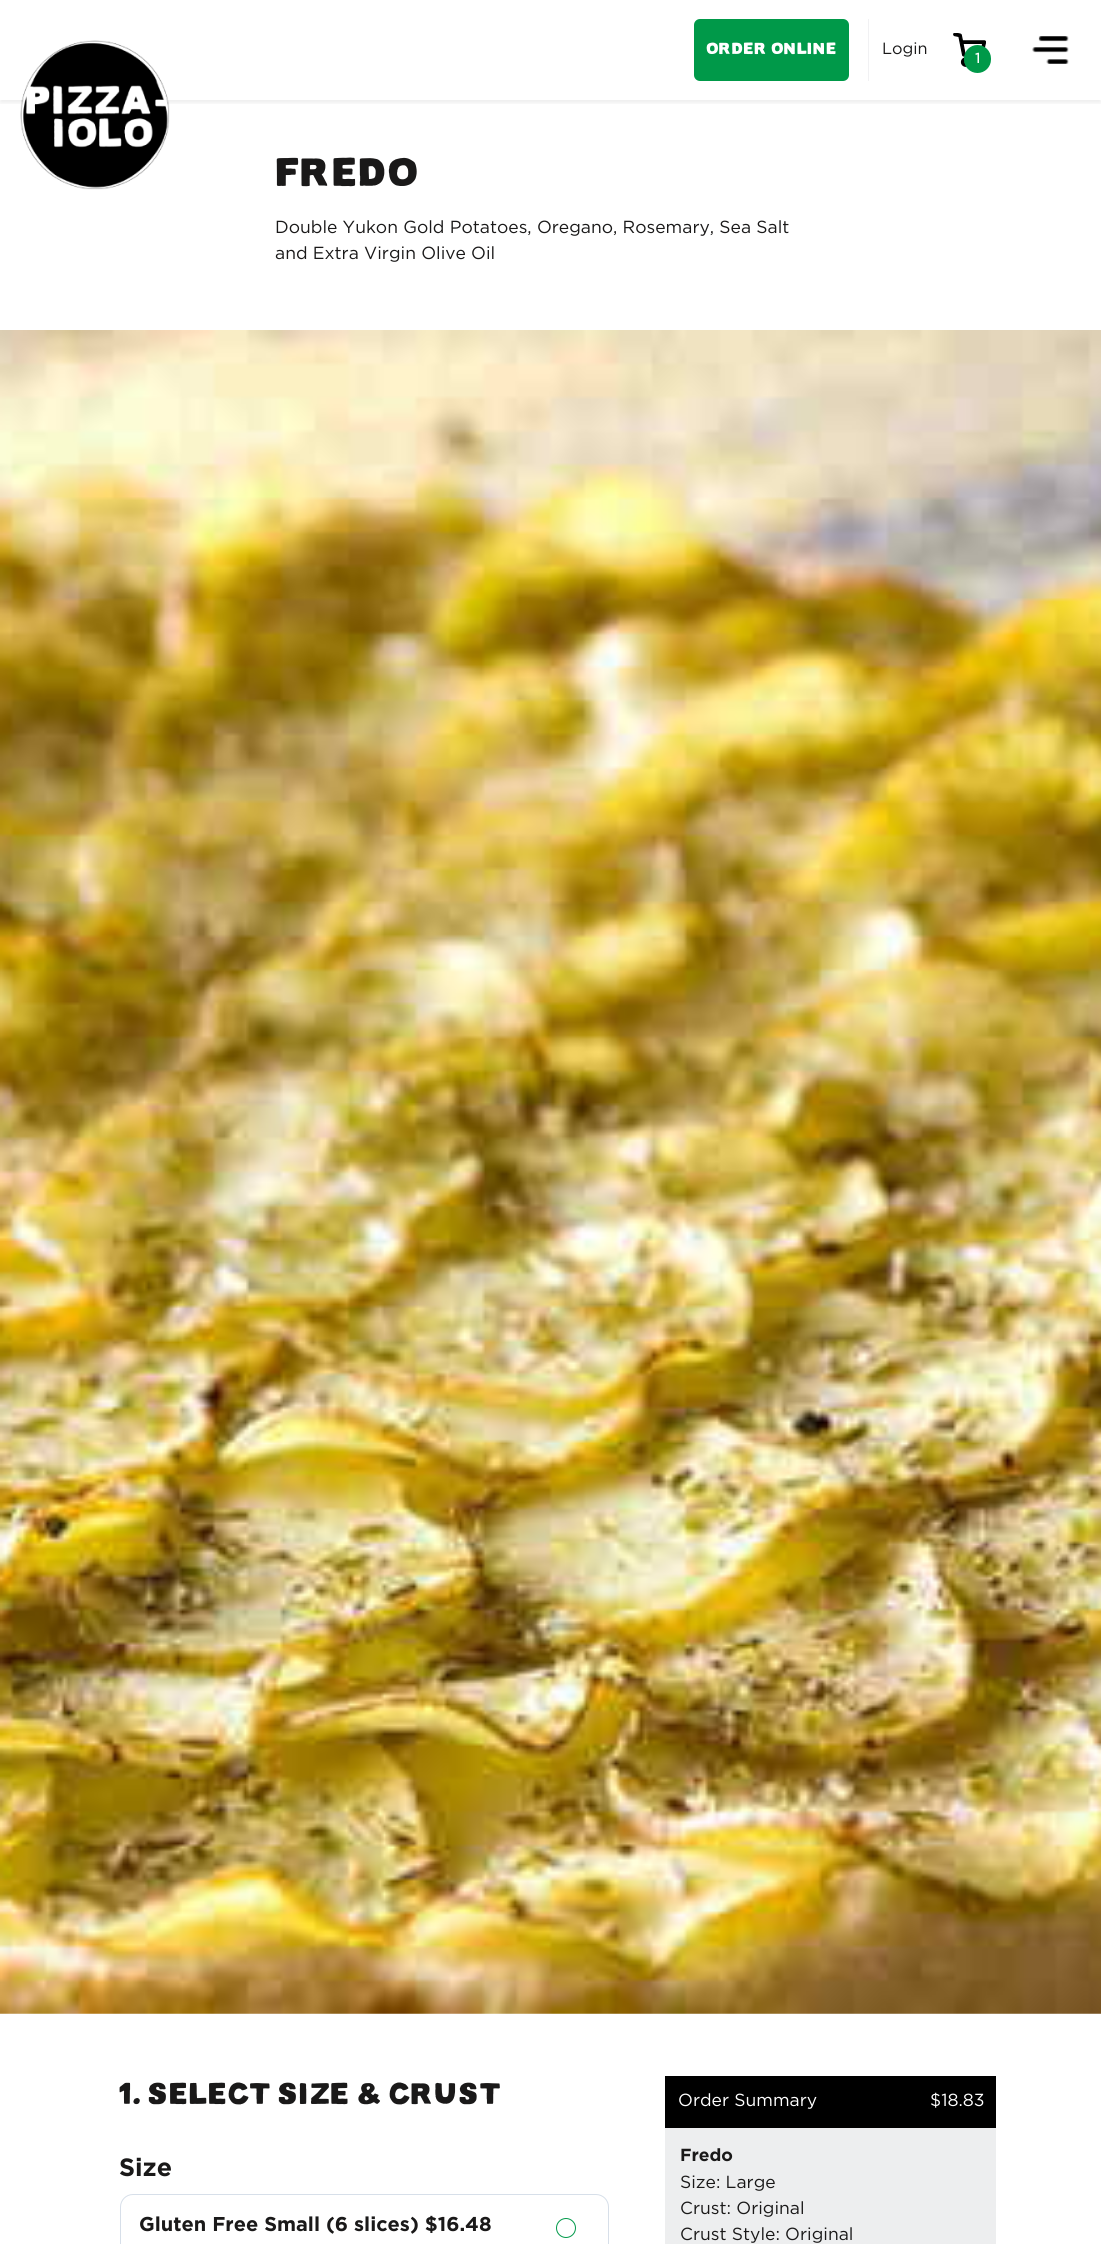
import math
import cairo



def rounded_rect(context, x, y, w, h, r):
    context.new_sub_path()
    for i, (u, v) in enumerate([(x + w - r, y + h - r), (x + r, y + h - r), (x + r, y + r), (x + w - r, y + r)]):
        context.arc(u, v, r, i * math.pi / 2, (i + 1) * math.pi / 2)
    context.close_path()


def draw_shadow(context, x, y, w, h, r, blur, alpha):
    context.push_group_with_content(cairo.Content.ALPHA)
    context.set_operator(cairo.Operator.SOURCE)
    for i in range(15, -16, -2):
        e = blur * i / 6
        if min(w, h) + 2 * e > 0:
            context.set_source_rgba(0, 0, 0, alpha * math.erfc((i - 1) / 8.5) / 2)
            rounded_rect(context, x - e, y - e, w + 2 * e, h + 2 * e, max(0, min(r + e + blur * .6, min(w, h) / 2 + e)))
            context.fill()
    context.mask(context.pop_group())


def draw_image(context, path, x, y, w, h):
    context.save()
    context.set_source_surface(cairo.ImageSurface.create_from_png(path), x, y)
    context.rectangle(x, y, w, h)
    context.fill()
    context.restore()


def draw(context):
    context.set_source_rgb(1, 1, 1)
    context.paint()
    context.save()
    context.rectangle(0, 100, 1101, 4)
    context.clip()
    context.set_source_rgb(0, 0, 0)
    draw_shadow(context, 0, 3, 1101, 100, 0, 2.5, 0.07)
    context.restore()
    draw_image(context, "images/1.png", 20, 40, 150, 150)
    context.set_source_rgb(241 / 255, 241 / 255, 243 / 255)
    context.rectangle(868, 19, 1, 62)
    context.fill()
    context.set_source_rgb(0, 153 / 255, 73 / 255)
    rounded_rect(context, 694, 19, 155, 62, 6)
    context.fill()
    draw_image(context, "images/2.png", 1032, 36, 37, 28)
    draw_image(context, "images/3.png", 953, 33, 33, 34)
    rounded_rect(context, 964, 45, 27, 28, 13.5)
    context.fill()
    draw_image(context, "images/4.png", 0, 330, 1101, 1684)
    rounded_rect(context, 120.5, 2194.5, 488, 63, 12.5)
    context.set_source_rgb(215 / 255, 223 / 255, 233 / 255)
    context.set_line_width(1)
    context.stroke()
    context.arc(566, 2228, 9.5, 0, 2 * math.pi)
    context.set_source_rgb(0, 153 / 255, 73 / 255)
    context.stroke()
    context.set_source_rgb(237 / 255, 238 / 255, 239 / 255)
    context.rectangle(665, 2128, 331, 116)
    context.fill()
    context.set_source_rgb(0, 0, 0)
    context.rectangle(665, 2076, 331, 52)
    context.fill()
    context.select_font_face("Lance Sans")
    context.set_font_size(16.25)
    context.set_source_rgb(1, 1, 1)
    context.move_to(706, 54)
    context.show_text("Order Online")
    context.select_font_face("Gotham")
    context.set_source_rgb(26 / 255, 25 / 255, 25 / 255)
    context.move_to(882, 54)
    context.show_text("Login")
    context.select_font_face("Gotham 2", cairo.FontSlant.NORMAL, cairo.FontWeight.BOLD)
    context.set_font_size(14)
    context.set_source_rgb(1, 1, 1)
    context.move_to(975, 63)
    context.show_text("1")
    context.select_font_face("Lance Sans")
    context.set_font_size(40)
    context.set_source_rgb(26 / 255, 25 / 255, 25 / 255)
    context.move_to(275, 186)
    context.show_text("Fredo")
    context.select_font_face("Gotham")
    context.set_font_size(17.5)
    context.move_to(275, 233)
    context.show_text("Double Yukon Gold Potatoes, Oregano, Rosemary, Sea Salt")
    context.move_to(275, 259)
    context.show_text("and Extra Virgin Olive Oil")
    context.select_font_face("Lance Sans")
    context.set_font_size(30)
    context.move_to(119, 2104)
    context.show_text("1. Select Size & crust")
    context.select_font_face("Gotham", cairo.FontSlant.NORMAL, cairo.FontWeight.BOLD)
    context.set_font_size(25)
    context.move_to(119, 2176)
    context.show_text("Size")
    context.set_font_size(20)
    context.move_to(139, 2231)
    context.show_text("Gluten Free Small (6 slices) $16.48")
    context.select_font_face("Gotham")
    context.set_font_size(17.5)
    context.set_source_rgb(1, 1, 1)
    context.move_to(678, 2106)
    context.show_text("Order Summary")
    context.move_to(930, 2106)
    context.show_text("$18.83")
    context.select_font_face("Gotham", cairo.FontSlant.NORMAL, cairo.FontWeight.BOLD)
    context.set_source_rgb(26 / 255, 25 / 255, 25 / 255)
    context.move_to(680, 2161)
    context.show_text("Fredo")
    context.select_font_face("Gotham")
    context.move_to(680, 2188)
    context.show_text("Size: Large")
    context.move_to(680, 2214)
    context.show_text("Crust: Original")
    context.move_to(680, 2240)
    context.show_text("Crust Style: Original")


surface = cairo.ImageSurface(cairo.Format.RGB24, 1101, 2244)
context = cairo.Context(surface)
options = cairo.FontOptions()
options.set_hint_metrics(cairo.HintMetrics.OFF)
options.set_hint_style(cairo.HintStyle.NONE)
context.set_font_options(options)
context.set_miter_limit(4)
draw(context)
surface.write_to_png("out.png")
